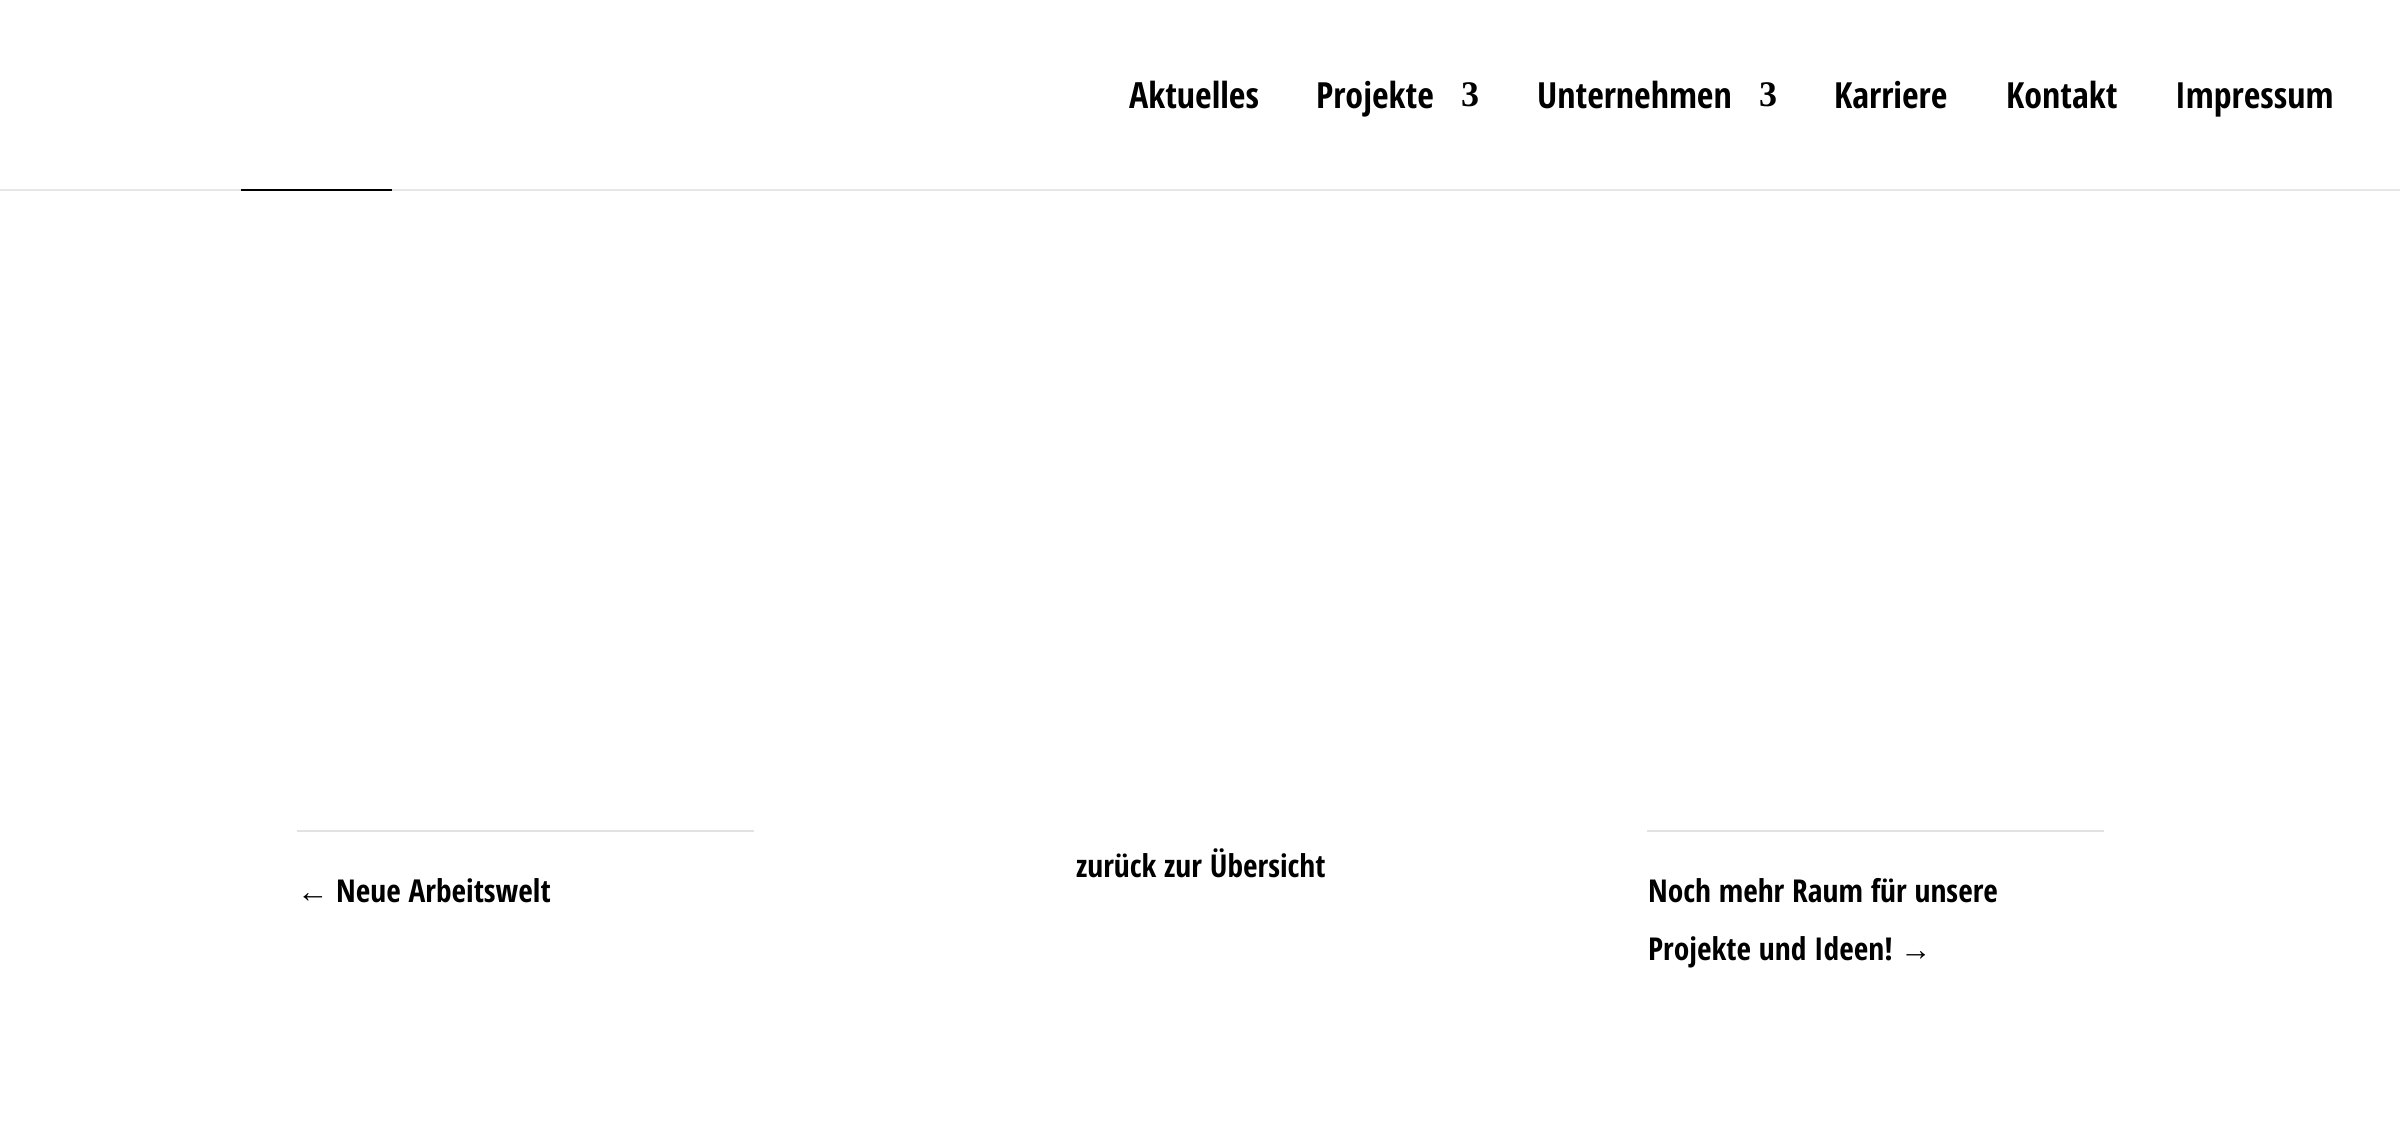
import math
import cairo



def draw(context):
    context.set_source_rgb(1, 1, 1)
    context.paint()
    context.set_source_rgb(0, 0, 0)
    context.rectangle(241, 189, 151, 2)
    context.fill()
    context.set_source_rgba(0, 0, 0, 0.1)
    context.new_path()
    context.move_to(0, 189)
    context.line_to(0, 191)
    context.line_to(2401, 191)
    context.line_to(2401, 2)
    context.line_to(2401, 189)
    context.close_path()
    context.fill()
    context.set_source_rgb(226 / 255, 226 / 255, 226 / 255)
    context.rectangle(297, 830, 457, 2)
    context.fill()
    context.rectangle(1647, 830, 457, 2)
    context.fill()
    context.select_font_face("Open Sans Condensed", cairo.FontSlant.NORMAL, cairo.FontWeight.BOLD)
    context.set_font_size(36)
    context.set_source_rgb(0, 0, 0)
    context.move_to(1129, 108)
    context.show_text("Aktuelles")
    context.move_to(1316, 108)
    context.show_text("Projekte")
    context.select_font_face("Liberation Serif", cairo.FontSlant.NORMAL, cairo.FontWeight.BOLD)
    context.move_to(1461, 106)
    context.show_text("3")
    context.select_font_face("Open Sans Condensed", cairo.FontSlant.NORMAL, cairo.FontWeight.BOLD)
    context.move_to(1537, 108)
    context.show_text("Unternehmen")
    context.select_font_face("Liberation Serif", cairo.FontSlant.NORMAL, cairo.FontWeight.BOLD)
    context.move_to(1759, 106)
    context.show_text("3")
    context.select_font_face("Open Sans Condensed", cairo.FontSlant.NORMAL, cairo.FontWeight.BOLD)
    context.move_to(1834, 108)
    context.show_text("Karriere")
    context.move_to(2006, 108)
    context.show_text("Kontakt")
    context.move_to(2175, 108)
    context.show_text("Impressum")
    context.set_font_size(31.5)
    context.move_to(1076, 877)
    context.show_text("zurück zur Übersicht")
    context.select_font_face("Liberation Sans")
    context.move_to(297, 902)
    context.show_text("←")
    context.select_font_face("Open Sans Condensed", cairo.FontSlant.NORMAL, cairo.FontWeight.BOLD)
    context.move_to(336, 902)
    context.show_text("Neue Arbeitswelt")
    context.move_to(1648, 902)
    context.show_text("Noch mehr Raum für unsere")
    context.move_to(1648, 960)
    context.show_text("Projekte und Ideen!")
    context.select_font_face("Liberation Sans")
    context.move_to(1900, 960)
    context.show_text("→")


surface = cairo.ImageSurface(cairo.Format.RGB24, 2400, 1123)
context = cairo.Context(surface)
options = cairo.FontOptions()
options.set_hint_metrics(cairo.HintMetrics.OFF)
options.set_hint_style(cairo.HintStyle.NONE)
context.set_font_options(options)
context.set_miter_limit(4)
draw(context)
surface.write_to_png("out.png")
